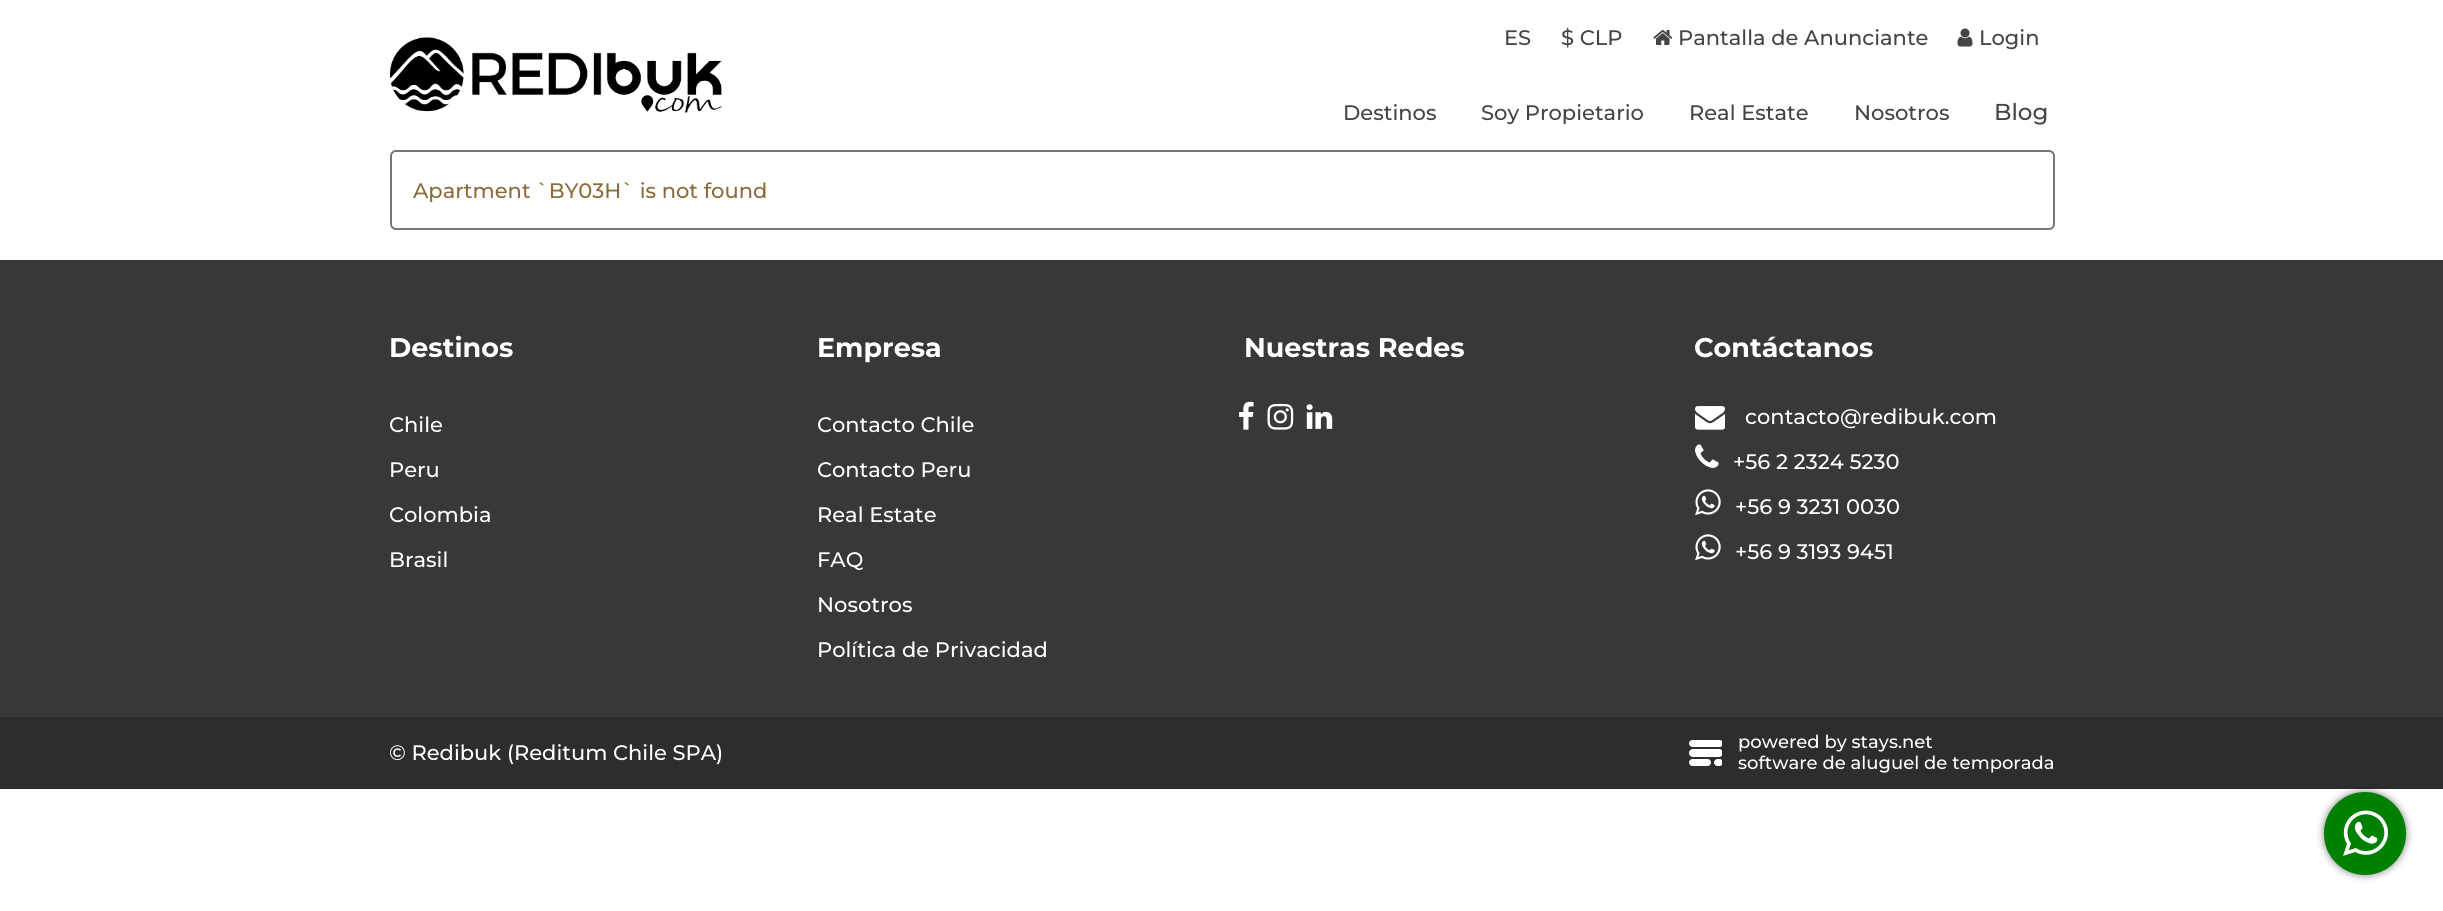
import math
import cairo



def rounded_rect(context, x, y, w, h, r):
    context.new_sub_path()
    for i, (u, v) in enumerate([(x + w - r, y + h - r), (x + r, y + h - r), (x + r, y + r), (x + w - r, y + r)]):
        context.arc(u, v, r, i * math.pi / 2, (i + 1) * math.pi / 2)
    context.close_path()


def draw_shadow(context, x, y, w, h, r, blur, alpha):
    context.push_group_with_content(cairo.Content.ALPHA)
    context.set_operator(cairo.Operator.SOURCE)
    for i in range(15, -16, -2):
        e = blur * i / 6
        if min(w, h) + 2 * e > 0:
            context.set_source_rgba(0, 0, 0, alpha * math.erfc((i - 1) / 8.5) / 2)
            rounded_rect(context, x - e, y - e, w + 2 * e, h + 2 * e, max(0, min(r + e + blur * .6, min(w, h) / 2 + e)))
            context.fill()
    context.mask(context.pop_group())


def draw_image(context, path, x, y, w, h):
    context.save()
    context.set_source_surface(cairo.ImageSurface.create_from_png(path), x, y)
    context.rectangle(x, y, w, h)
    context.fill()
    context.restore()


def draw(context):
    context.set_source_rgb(1, 1, 1)
    context.paint()
    draw_image(context, "images/1.png", 390, 37, 332, 76)
    draw_image(context, "images/2.png", 1653, 30, 20, 15)
    draw_image(context, "images/3.png", 1957, 28, 16, 19)
    rounded_rect(context, 391, 151, 1663, 78, 5)
    context.set_source_rgb(119 / 255, 119 / 255, 119 / 255)
    context.stroke()
    context.set_source_rgb(56 / 255, 56 / 255, 56 / 255)
    context.rectangle(0, 260, 2443, 457)
    context.fill()
    draw_image(context, "images/4.png", 1239, 401, 15, 29)
    draw_image(context, "images/5.png", 1267, 403, 27, 27)
    draw_image(context, "images/6.png", 1306, 404, 27, 25)
    draw_image(context, "images/7.png", 1695, 406, 30, 24)
    draw_image(context, "images/8.png", 1695, 444, 24, 24)
    draw_image(context, "images/9.png", 1695, 489, 26, 27)
    draw_image(context, "images/9.png", 1695, 534, 26, 27)
    context.set_source_rgb(45 / 255, 45 / 255, 45 / 255)
    context.rectangle(0, 717, 2443, 72)
    context.fill()
    context.set_source_rgb(0, 0, 0)
    draw_shadow(context, 2324, 792, 82, 83, 41, 4, 0.5)
    context.set_source_rgb(0, 128 / 255, 0)
    rounded_rect(context, 2324, 792, 82, 83, 41)
    context.fill()
    draw_image(context, "images/10.png", 2343, 810, 45, 46)
    context.save()
    context.rectangle(1689, 740, 33, 27)
    context.clip()
    context.set_source_rgb(1, 1, 1)
    rounded_rect(context, 1689, 749, 34, 8, 4)
    context.fill()
    rounded_rect(context, 1689, 740, 34, 7, 3.5)
    context.fill()
    rounded_rect(context, 1714, 759, 9, 7, 3.5)
    context.fill()
    context.restore()
    context.set_source_rgb(1, 1, 1)
    rounded_rect(context, 1689, 759, 22, 7, 3.5)
    context.fill()
    context.select_font_face("Montserrat Medium")
    context.set_font_size(21)
    context.set_source_rgb(69 / 255, 69 / 255, 69 / 255)
    context.move_to(1504, 45)
    context.show_text("ES")
    context.move_to(1561, 45)
    context.show_text("$ CLP")
    context.move_to(1678, 45)
    context.show_text("Pantalla de Anunciante")
    context.move_to(1979, 45)
    context.show_text("Login")
    context.move_to(1343, 120)
    context.show_text("Destinos")
    context.move_to(1481, 120)
    context.show_text("Soy Propietario")
    context.move_to(1689, 120)
    context.show_text("Real Estate")
    context.move_to(1854, 120)
    context.show_text("Nosotros")
    context.set_font_size(23)
    context.move_to(1994, 120)
    context.show_text("Blog")
    context.set_font_size(21)
    context.set_source_rgb(138 / 255, 109 / 255, 59 / 255)
    context.move_to(413, 198)
    context.show_text("Apartment `BY03H` is not found")
    context.select_font_face("Montserrat", cairo.FontSlant.NORMAL, cairo.FontWeight.BOLD)
    context.set_font_size(27)
    context.set_source_rgb(1, 1, 1)
    context.move_to(389, 357)
    context.show_text("Destinos")
    context.select_font_face("Montserrat Medium")
    context.set_font_size(21)
    context.move_to(389, 432)
    context.show_text("Chile")
    context.move_to(389, 477)
    context.show_text("Peru")
    context.move_to(389, 522)
    context.show_text("Colombia")
    context.move_to(389, 567)
    context.show_text("Brasil")
    context.select_font_face("Montserrat", cairo.FontSlant.NORMAL, cairo.FontWeight.BOLD)
    context.set_font_size(27)
    context.move_to(817, 357)
    context.show_text("Empresa")
    context.select_font_face("Montserrat Medium")
    context.set_font_size(21)
    context.move_to(817, 432)
    context.show_text("Contacto Chile")
    context.move_to(817, 477)
    context.show_text("Contacto Peru")
    context.move_to(817, 522)
    context.show_text("Real Estate")
    context.move_to(817, 567)
    context.show_text("FAQ")
    context.move_to(817, 612)
    context.show_text("Nosotros")
    context.move_to(817, 657)
    context.show_text("Política de Privacidad")
    context.select_font_face("Montserrat", cairo.FontSlant.NORMAL, cairo.FontWeight.BOLD)
    context.set_font_size(27)
    context.move_to(1244, 357)
    context.show_text("Nuestras Redes")
    context.move_to(1694, 357)
    context.show_text("Contáctanos")
    context.select_font_face("Montserrat Medium")
    context.set_font_size(21)
    context.move_to(1745, 424)
    context.show_text("contacto@redibuk.com")
    context.move_to(1733, 469)
    context.show_text("+56 2 2324 5230")
    context.move_to(1735, 514)
    context.show_text("+56 9 3231 0030")
    context.move_to(1735, 559)
    context.show_text("+56 9 3193 9451")
    context.move_to(389, 760)
    context.show_text("© Redibuk (Reditum Chile SPA)")
    context.set_font_size(18)
    context.move_to(1738, 748)
    context.show_text("powered by stays.net")
    context.move_to(1738, 769)
    context.show_text("software de aluguel de temporada")


surface = cairo.ImageSurface(cairo.Format.RGB24, 2443, 911)
context = cairo.Context(surface)
options = cairo.FontOptions()
options.set_hint_metrics(cairo.HintMetrics.OFF)
options.set_hint_style(cairo.HintStyle.NONE)
context.set_font_options(options)
context.set_miter_limit(4)
draw(context)
surface.write_to_png("out.png")
